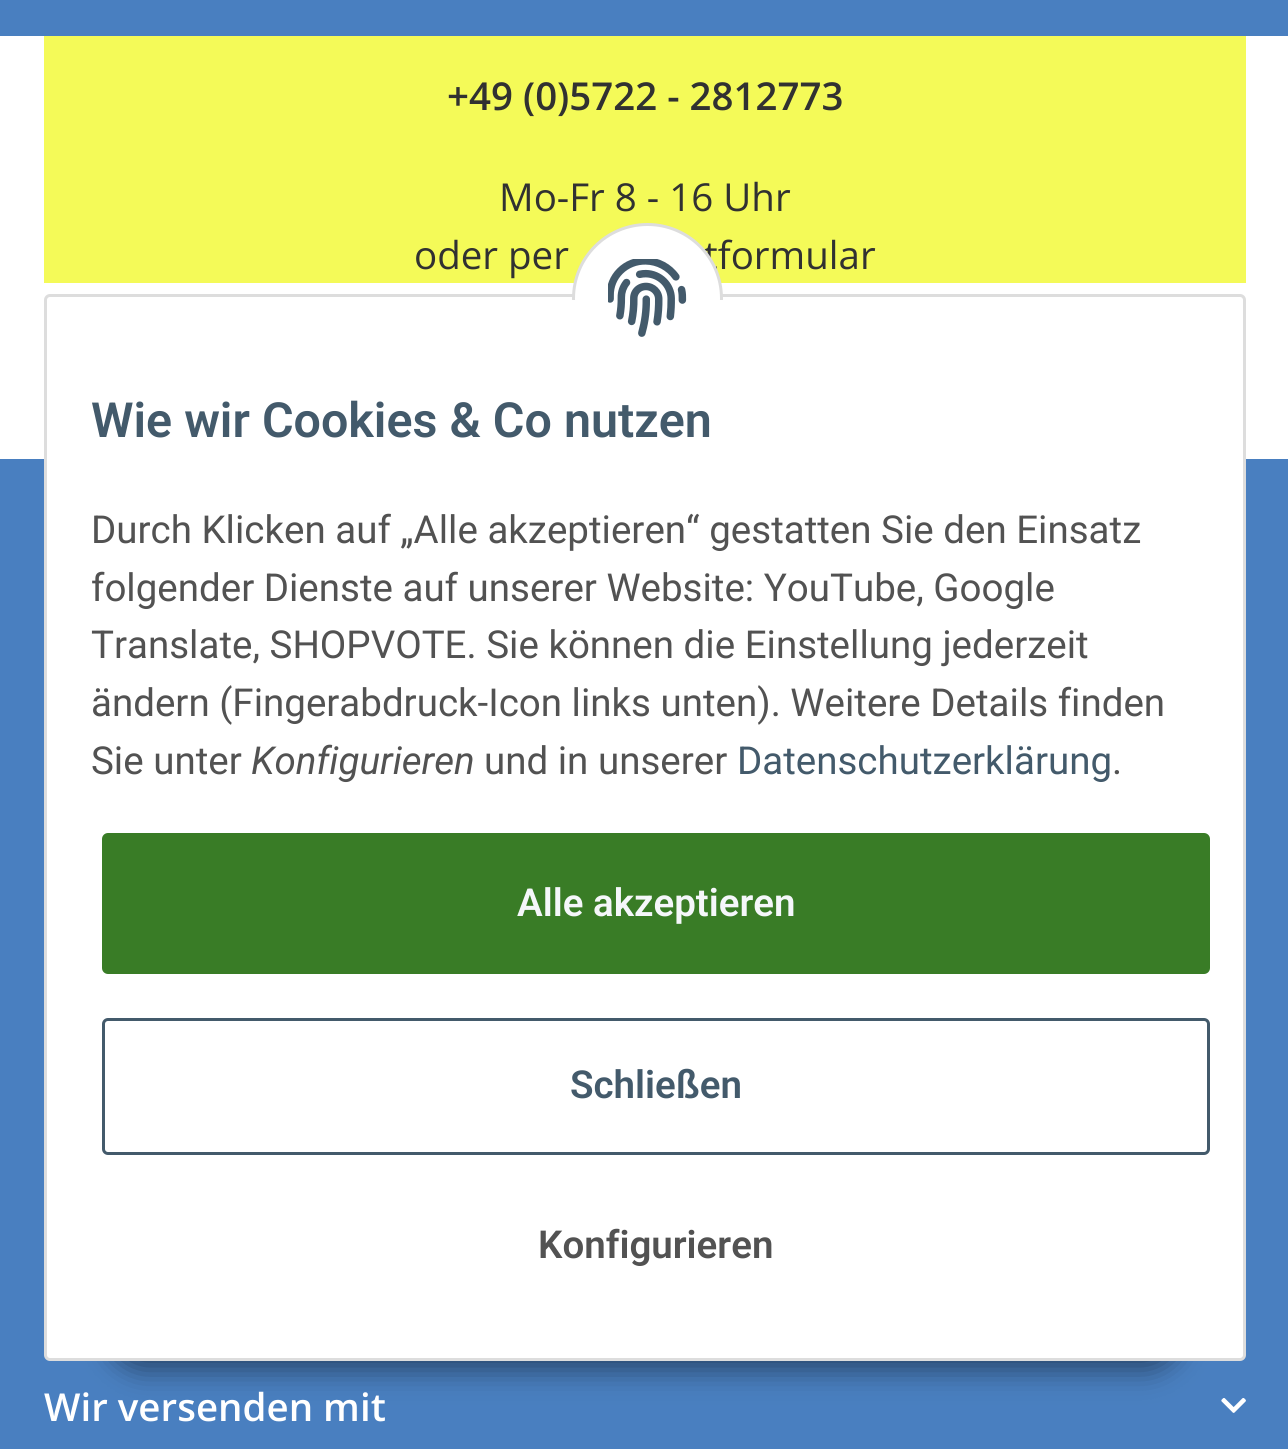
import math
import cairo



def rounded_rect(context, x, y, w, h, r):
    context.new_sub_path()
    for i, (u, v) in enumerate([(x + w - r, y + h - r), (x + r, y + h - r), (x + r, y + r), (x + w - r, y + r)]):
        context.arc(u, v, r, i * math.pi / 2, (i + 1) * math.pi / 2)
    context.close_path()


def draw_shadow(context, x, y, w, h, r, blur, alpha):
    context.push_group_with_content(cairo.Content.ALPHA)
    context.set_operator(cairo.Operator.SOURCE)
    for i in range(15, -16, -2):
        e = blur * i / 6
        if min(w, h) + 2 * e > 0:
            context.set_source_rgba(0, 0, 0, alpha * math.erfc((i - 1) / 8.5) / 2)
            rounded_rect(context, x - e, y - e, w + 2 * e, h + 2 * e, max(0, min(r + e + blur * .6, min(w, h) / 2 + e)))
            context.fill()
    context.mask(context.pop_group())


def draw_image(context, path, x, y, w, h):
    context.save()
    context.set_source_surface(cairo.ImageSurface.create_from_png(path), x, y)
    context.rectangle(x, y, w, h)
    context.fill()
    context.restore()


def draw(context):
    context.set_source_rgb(1, 1, 1)
    context.paint()
    context.set_source_rgb(73 / 255, 127 / 255, 192 / 255)
    context.rectangle(0, 0, 1288, 36)
    context.fill()
    context.set_source_rgb(244 / 255, 250 / 255, 88 / 255)
    context.rectangle(44, 36, 1202, 247)
    context.fill()
    context.set_source_rgb(73 / 255, 127 / 255, 192 / 255)
    context.rectangle(0, 459, 1288, 990)
    context.fill()
    draw_image(context, "images/2.png", 1221, 1398, 25, 15)
    context.set_source_rgb(0, 0, 0)
    draw_shadow(context, 107, 1282, 1076, 88, 44, 14, 0.45)
    context.set_source_rgb(1, 1, 1)
    rounded_rect(context, 45.5, 295.5, 1199, 1064, 4.5)
    context.fill_preserve()
    context.set_source_rgb(221 / 255, 221 / 255, 221 / 255)
    context.set_line_width(3)
    context.stroke()
    context.set_source_rgb(57 / 255, 124 / 255, 38 / 255)
    rounded_rect(context, 103.5, 834.5, 1105, 138, 4.5)
    context.fill_preserve()
    context.stroke()
    rounded_rect(context, 103.5, 1019.5, 1105, 134, 4.5)
    context.set_source_rgb(67 / 255, 90 / 255, 107 / 255)
    context.stroke()
    context.select_font_face("Open Sans SemiBold")
    context.set_font_size(38.5)
    context.set_source_rgb(49 / 255, 49 / 255, 49 / 255)
    context.move_to(447, 110)
    context.show_text("+49 (0)5722 - 2812773")
    context.select_font_face("Open Sans")
    context.move_to(499, 211)
    context.show_text("Mo-Fr 8 - 16 Uhr")
    context.move_to(414, 269)
    context.show_text("oder per")
    context.move_to(704, 269)
    context.show_text("tformular")
    context.set_source_rgb(1, 1, 1)
    context.new_path()
    context.arc(647.5, 298.5, 74, 0, 2 * math.pi)
    context.fill_preserve()
    context.set_source_rgb(221 / 255, 221 / 255, 221 / 255)
    context.stroke()
    context.set_source_rgb(1, 1, 1)
    context.rectangle(572, 300, 151, 74)
    context.fill()
    draw_image(context, "images/1.png", 608, 259, 79, 78)
    context.select_font_face("Roboto SemiBold")
    context.set_font_size(48.4)
    context.set_source_rgb(67 / 255, 90 / 255, 107 / 255)
    context.move_to(91, 437)
    context.show_text("Wie wir Cookies & Co nutzen")
    context.select_font_face("Roboto")
    context.set_font_size(38.5)
    context.set_source_rgb(82 / 255, 82 / 255, 82 / 255)
    context.move_to(91, 543)
    context.show_text("Durch Klicken auf „Alle akzeptieren“ gestatten Sie den Einsatz")
    context.move_to(91, 601)
    context.show_text("folgender Dienste auf unserer Website: YouTube, Google")
    context.move_to(91, 658)
    context.show_text("Translate, SHOPVOTE. Sie können die Einstellung jederzeit")
    context.move_to(91, 716)
    context.show_text("ändern (Fingerabdruck-Icon links unten). Weitere Details finden")
    context.move_to(91, 774)
    context.show_text("Sie unter")
    context.select_font_face("Roboto", cairo.FontSlant.ITALIC)
    context.move_to(251, 774)
    context.show_text("Konfigurieren")
    context.select_font_face("Roboto")
    context.move_to(484, 774)
    context.show_text("und in unserer")
    context.set_source_rgb(67 / 255, 90 / 255, 107 / 255)
    context.move_to(737, 774)
    context.show_text("Datenschutzerklärung")
    context.set_source_rgb(82 / 255, 82 / 255, 82 / 255)
    context.move_to(1112, 774)
    context.show_text(".")
    context.select_font_face("Roboto SemiBold")
    context.set_source_rgb(245 / 255, 247 / 255, 250 / 255)
    context.move_to(517, 916)
    context.show_text("Alle akzeptieren")
    context.set_source_rgb(67 / 255, 90 / 255, 107 / 255)
    context.move_to(570, 1098)
    context.show_text("Schließen")
    context.set_source_rgb(82 / 255, 82 / 255, 82 / 255)
    context.move_to(538, 1258)
    context.show_text("Konfigurieren")
    context.select_font_face("Open Sans SemiBold")
    context.set_source_rgb(1, 1, 1)
    context.move_to(44, 1421)
    context.show_text("Wir versenden mit")


surface = cairo.ImageSurface(cairo.Format.RGB24, 1288, 1449)
context = cairo.Context(surface)
options = cairo.FontOptions()
options.set_hint_metrics(cairo.HintMetrics.OFF)
options.set_hint_style(cairo.HintStyle.NONE)
context.set_font_options(options)
context.set_miter_limit(4)
draw(context)
surface.write_to_png("out.png")
